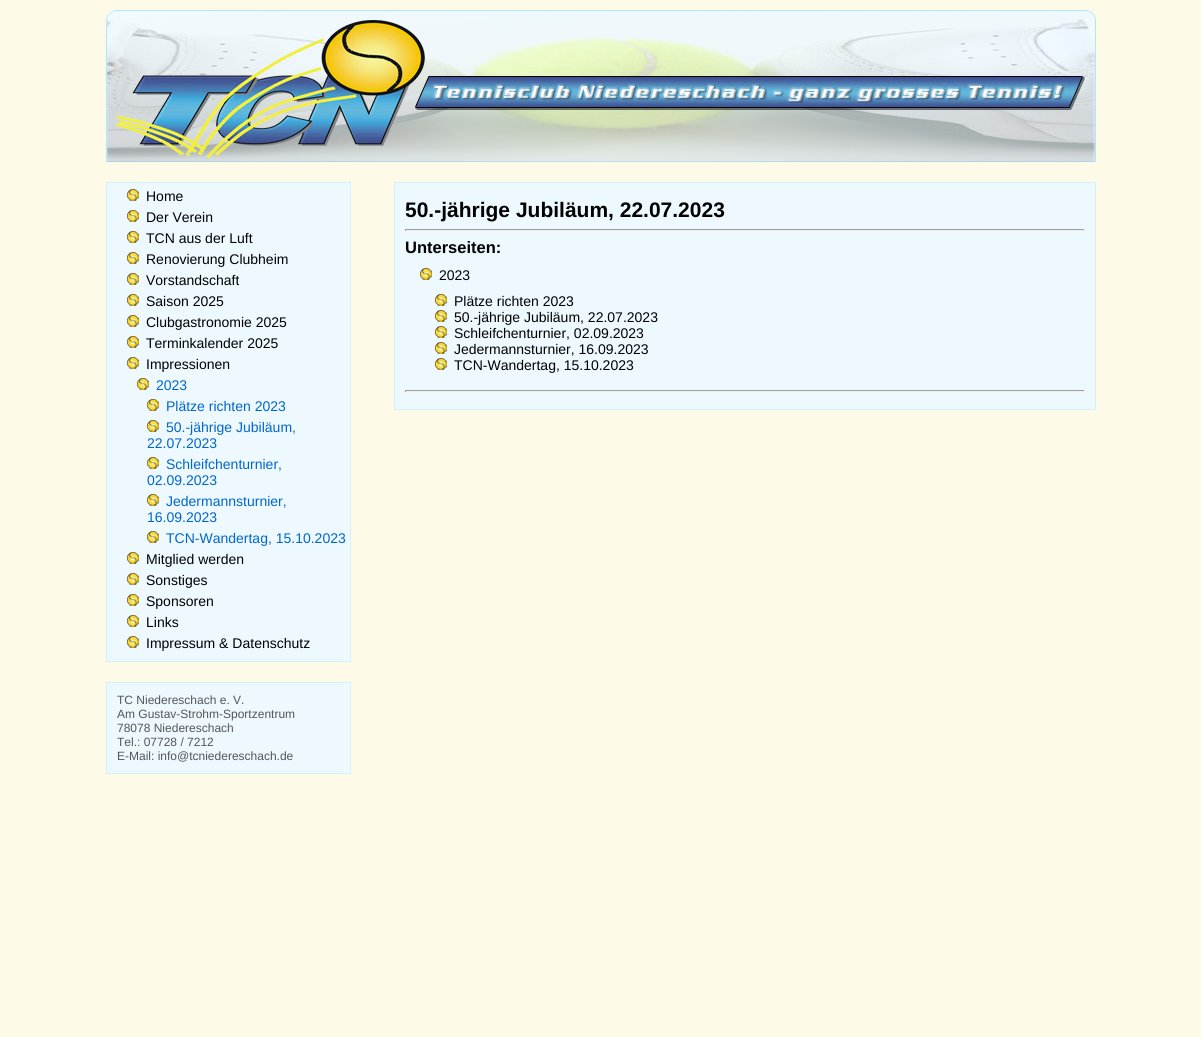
import math
import cairo



def draw_image(context, path, x, y, w, h):
    context.save()
    context.set_source_surface(cairo.ImageSurface.create_from_png(path), x, y)
    context.rectangle(x, y, w, h)
    context.fill()
    context.restore()


def draw(context):
    context.set_source_rgb(253 / 255, 251 / 255, 232 / 255)
    context.paint()
    draw_image(context, "images/1.png", 106, 10, 990, 152)
    context.set_source_rgb(237 / 255, 249 / 255, 1)
    context.rectangle(106.5, 182.5, 244, 479)
    context.fill_preserve()
    context.set_source_rgb(211 / 255, 240 / 255, 1)
    context.set_line_width(1)
    context.stroke()
    draw_image(context, "images/2.png", 127, 189, 12, 12)
    draw_image(context, "images/2.png", 127, 210, 12, 12)
    draw_image(context, "images/2.png", 127, 231, 12, 12)
    draw_image(context, "images/2.png", 127, 252, 12, 12)
    draw_image(context, "images/2.png", 127, 273, 12, 12)
    draw_image(context, "images/2.png", 127, 294, 12, 12)
    draw_image(context, "images/2.png", 127, 315, 12, 12)
    draw_image(context, "images/2.png", 127, 336, 12, 12)
    draw_image(context, "images/2.png", 127, 357, 12, 12)
    draw_image(context, "images/2.png", 137, 378, 12, 12)
    draw_image(context, "images/2.png", 147, 399, 12, 12)
    draw_image(context, "images/2.png", 147, 420, 12, 12)
    draw_image(context, "images/2.png", 147, 457, 12, 12)
    draw_image(context, "images/2.png", 147, 494, 12, 12)
    draw_image(context, "images/2.png", 147, 531, 12, 12)
    draw_image(context, "images/2.png", 127, 552, 12, 12)
    draw_image(context, "images/2.png", 127, 573, 12, 12)
    draw_image(context, "images/2.png", 127, 594, 12, 12)
    draw_image(context, "images/2.png", 127, 615, 12, 12)
    draw_image(context, "images/2.png", 127, 636, 12, 12)
    context.set_source_rgb(237 / 255, 249 / 255, 1)
    context.rectangle(106.5, 682.5, 244, 91)
    context.fill_preserve()
    context.set_source_rgb(211 / 255, 240 / 255, 1)
    context.stroke()
    context.set_source_rgb(237 / 255, 249 / 255, 1)
    context.rectangle(394.5, 182.5, 701, 227)
    context.fill_preserve()
    context.set_source_rgb(211 / 255, 240 / 255, 1)
    context.stroke()
    context.set_source_rgb(159 / 255, 159 / 255, 159 / 255)
    context.rectangle(405, 229, 680, 1)
    context.fill()
    context.set_source_rgb(238 / 255, 238 / 255, 238 / 255)
    context.rectangle(1084, 229, 1, 2)
    context.fill()
    context.rectangle(405, 230, 680, 1)
    context.fill()
    context.set_source_rgb(159 / 255, 159 / 255, 159 / 255)
    context.rectangle(405, 229, 1, 2)
    context.fill()
    draw_image(context, "images/2.png", 420, 268, 12, 12)
    draw_image(context, "images/2.png", 435, 294, 12, 12)
    draw_image(context, "images/2.png", 435, 310, 12, 12)
    draw_image(context, "images/2.png", 435, 326, 12, 12)
    draw_image(context, "images/2.png", 435, 342, 12, 12)
    draw_image(context, "images/2.png", 435, 358, 12, 12)
    context.rectangle(405, 390, 680, 1)
    context.fill()
    context.set_source_rgb(238 / 255, 238 / 255, 238 / 255)
    context.rectangle(1084, 390, 1, 2)
    context.fill()
    context.rectangle(405, 391, 680, 1)
    context.fill()
    context.set_source_rgb(159 / 255, 159 / 255, 159 / 255)
    context.rectangle(405, 390, 1, 2)
    context.fill()
    context.select_font_face("Liberation Sans")
    context.set_font_size(14)
    context.set_source_rgb(0, 0, 0)
    context.move_to(146, 201)
    context.show_text("Home")
    context.move_to(146, 222)
    context.show_text("Der Verein")
    context.move_to(146, 243)
    context.show_text("TCN aus der Luft")
    context.move_to(146, 264)
    context.show_text("Renovierung Clubheim")
    context.move_to(146, 285)
    context.show_text("Vorstandschaft")
    context.move_to(146, 306)
    context.show_text("Saison 2025")
    context.move_to(146, 327)
    context.show_text("Clubgastronomie 2025")
    context.move_to(146, 348)
    context.show_text("Terminkalender 2025")
    context.move_to(146, 369)
    context.show_text("Impressionen")
    context.set_source_rgb(0, 102 / 255, 204 / 255)
    context.move_to(156, 390)
    context.show_text("2023")
    context.move_to(166, 411)
    context.show_text("Plätze richten 2023")
    context.move_to(166, 432)
    context.show_text("50.-jährige Jubiläum,")
    context.move_to(147, 448)
    context.show_text("22.07.2023")
    context.move_to(166, 469)
    context.show_text("Schleifchenturnier,")
    context.move_to(147, 485)
    context.show_text("02.09.2023")
    context.move_to(166, 506)
    context.show_text("Jedermannsturnier,")
    context.move_to(147, 522)
    context.show_text("16.09.2023")
    context.move_to(166, 543)
    context.show_text("TCN-Wandertag, 15.10.2023")
    context.set_source_rgb(0, 0, 0)
    context.move_to(146, 564)
    context.show_text("Mitglied werden")
    context.move_to(146, 585)
    context.show_text("Sonstiges")
    context.move_to(146, 606)
    context.show_text("Sponsoren")
    context.move_to(146, 627)
    context.show_text("Links")
    context.move_to(146, 648)
    context.show_text("Impressum & Datenschutz")
    context.set_font_size(12)
    context.set_source_rgb(85 / 255, 85 / 255, 85 / 255)
    context.move_to(117, 704)
    context.show_text("TC Niedereschach e. V.")
    context.move_to(117, 718)
    context.show_text("Am Gustav-Strohm-Sportzentrum")
    context.move_to(117, 732)
    context.show_text("78078 Niedereschach")
    context.move_to(117, 746)
    context.show_text("Tel.: 07728 / 7212")
    context.move_to(117, 760)
    context.show_text("E-Mail: info@tcniedereschach.de")
    context.select_font_face("Liberation Sans", cairo.FontSlant.NORMAL, cairo.FontWeight.BOLD)
    context.set_font_size(21)
    context.set_source_rgb(0, 0, 0)
    context.move_to(405, 217)
    context.show_text("50.-jährige Jubiläum, 22.07.2023")
    context.set_font_size(16.5)
    context.move_to(405, 253)
    context.show_text("Unterseiten:")
    context.select_font_face("Liberation Sans")
    context.set_font_size(14)
    context.move_to(439, 280)
    context.show_text("2023")
    context.move_to(454, 306)
    context.show_text("Plätze richten 2023")
    context.move_to(454, 322)
    context.show_text("50.-jährige Jubiläum, 22.07.2023")
    context.move_to(454, 338)
    context.show_text("Schleifchenturnier, 02.09.2023")
    context.move_to(454, 354)
    context.show_text("Jedermannsturnier, 16.09.2023")
    context.move_to(454, 370)
    context.show_text("TCN-Wandertag, 15.10.2023")


surface = cairo.ImageSurface(cairo.Format.RGB24, 1201, 1037)
context = cairo.Context(surface)
options = cairo.FontOptions()
options.set_hint_metrics(cairo.HintMetrics.OFF)
options.set_hint_style(cairo.HintStyle.NONE)
context.set_font_options(options)
context.set_miter_limit(4)
draw(context)
surface.write_to_png("out.png")
